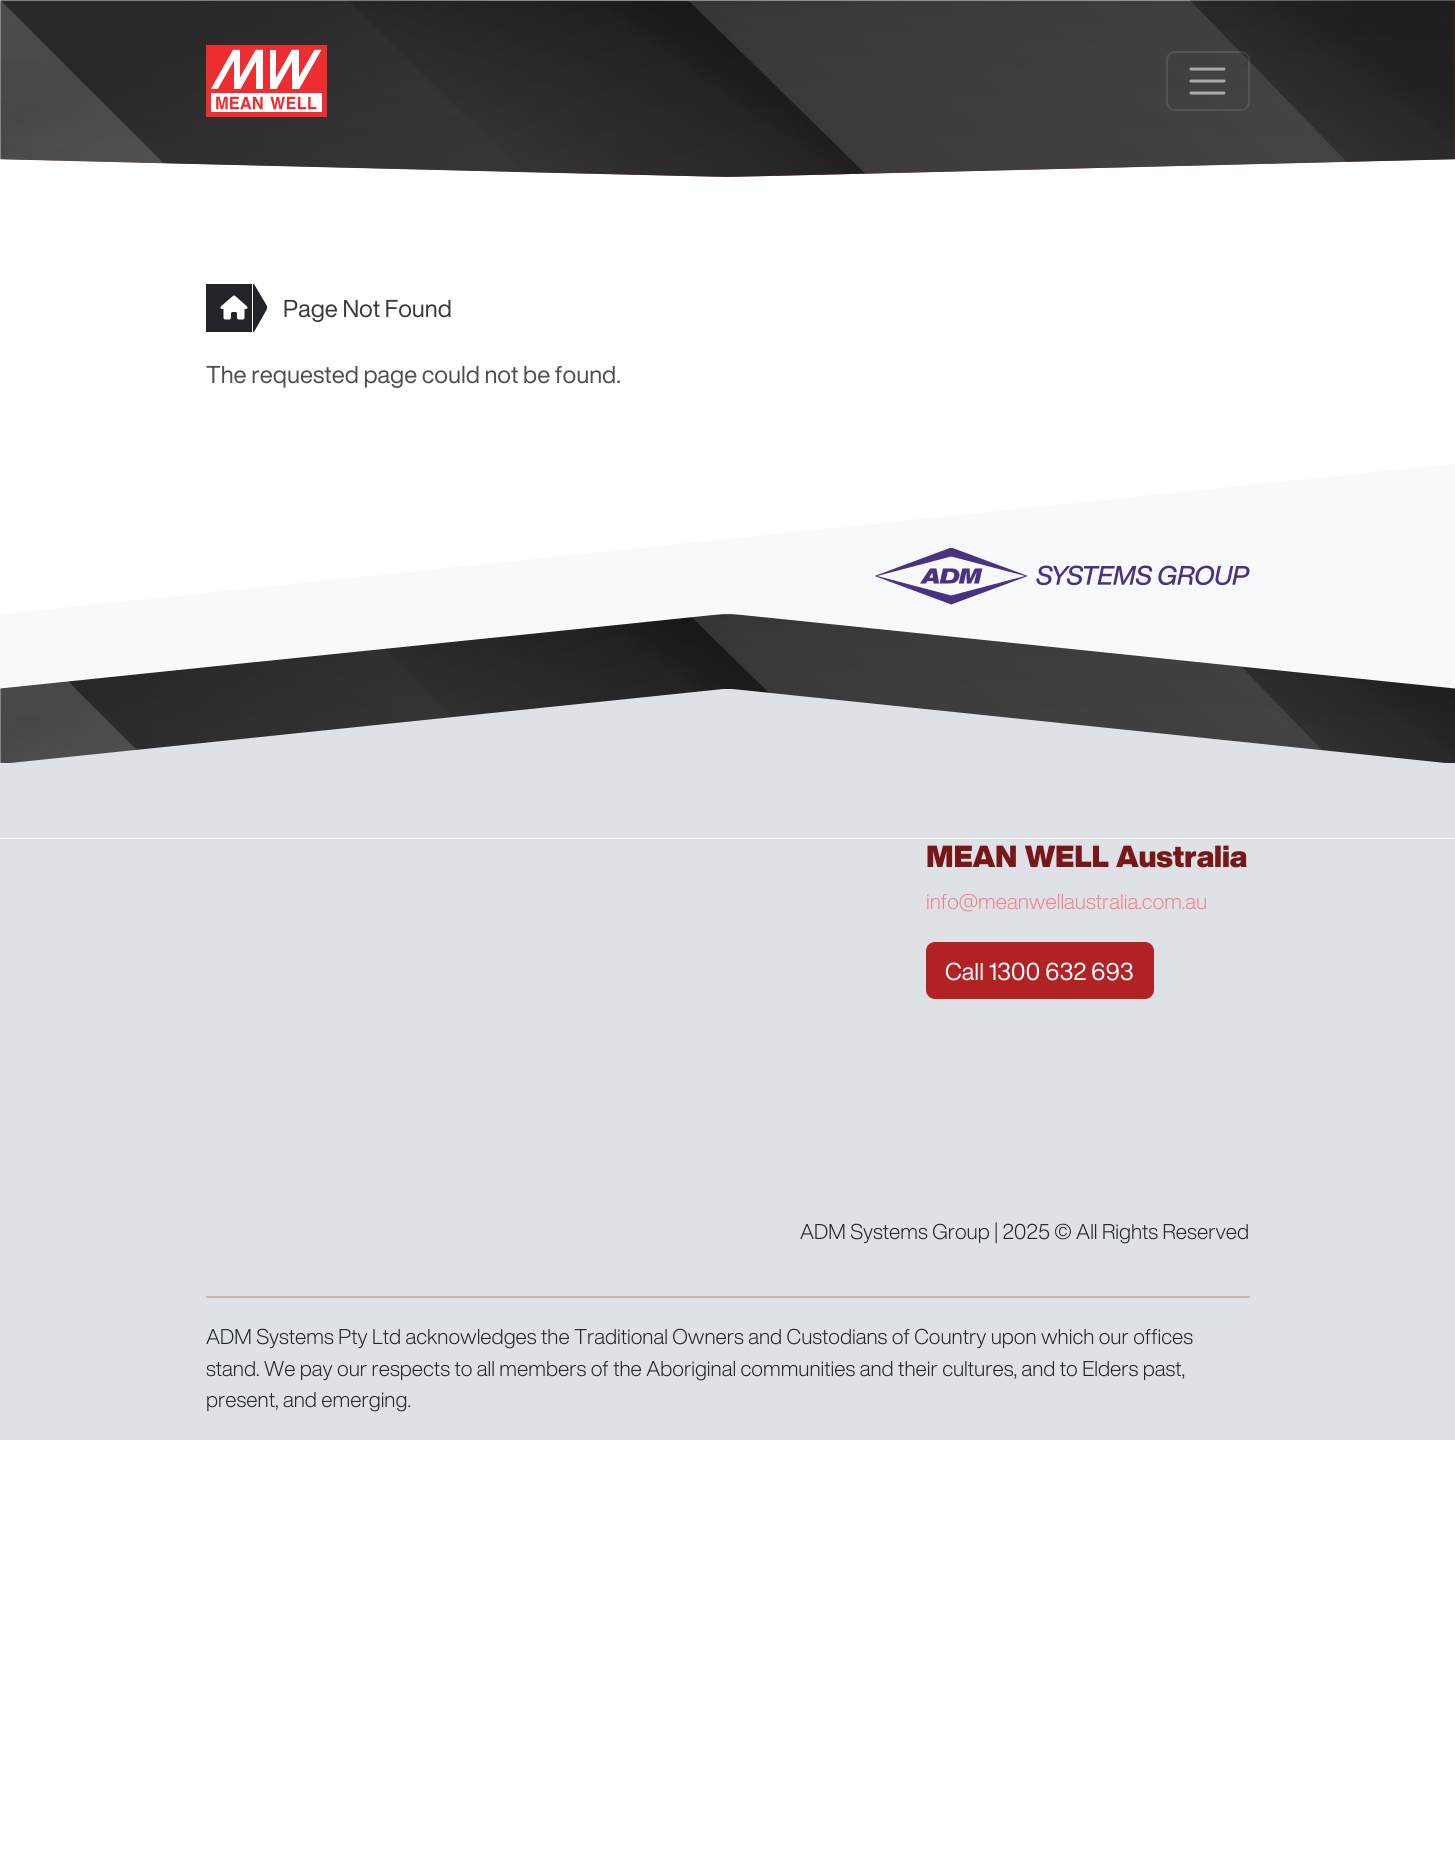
import math
import cairo



def rounded_rect(context, x, y, w, h, r):
    context.new_sub_path()
    for i, (u, v) in enumerate([(x + w - r, y + h - r), (x + r, y + h - r), (x + r, y + r), (x + w - r, y + r)]):
        context.arc(u, v, r, i * math.pi / 2, (i + 1) * math.pi / 2)
    context.close_path()


def draw_image(context, path, x, y, w, h):
    context.save()
    context.set_source_surface(cairo.ImageSurface.create_from_png(path), x, y)
    context.rectangle(x, y, w, h)
    context.fill()
    context.restore()


def draw(context):
    context.set_source_rgb(1, 1, 1)
    context.paint()
    context.set_source_rgb(223 / 255, 63 / 255, 47 / 255)
    context.new_path()
    context.move_to(0, 0)
    context.line_to(0, 159)
    context.line_to(728, 177)
    context.line_to(1455, 159)
    context.line_to(1455, 0)
    context.close_path()
    context.fill()
    draw_image(context, "images/1.png", 0, 0, 1455, 177)
    draw_image(context, "images/2.png", 206, 45, 121, 72)
    rounded_rect(context, 1167, 52, 82, 58, 8)
    context.set_source_rgba(1, 1, 1, 0.1)
    context.stroke()
    context.new_path()
    context.move_to(1191, 69)
    context.line_to(1224, 69)
    context.move_to(1191, 81)
    context.line_to(1224, 81)
    context.move_to(1191, 93)
    context.line_to(1224, 93)
    context.set_source_rgb(170 / 255, 170 / 255, 170 / 255)
    context.set_line_width(3)
    context.set_line_cap(cairo.LineCap.ROUND)
    context.stroke()
    context.set_source_rgb(33 / 255, 37 / 255, 41 / 255)
    context.rectangle(206, 284, 46, 48)
    context.fill()
    draw_image(context, "images/3.png", 220, 295, 28, 25)
    context.new_path()
    context.move_to(267, 309)
    context.line_to(254, 332)
    context.line_to(253, 332)
    context.line_to(253, 284)
    context.line_to(254, 284)
    context.line_to(267, 306)
    context.close_path()
    context.fill()
    context.set_source_rgb(248 / 255, 249 / 255, 250 / 255)
    context.new_path()
    context.move_to(0, 614)
    context.line_to(0, 688)
    context.line_to(1455, 688)
    context.line_to(1455, 464)
    context.line_to(1450, 464)
    context.close_path()
    context.fill()
    draw_image(context, "images/4.png", 875, 548, 375, 57)
    draw_image(context, "images/5.png", 0, 613, 1455, 151)
    context.set_source_rgb(222 / 255, 226 / 255, 230 / 255)
    context.new_path()
    context.move_to(0, 764)
    context.line_to(0, 838)
    context.line_to(1455, 838)
    context.line_to(1455, 764)
    context.line_to(732, 689)
    context.line_to(723, 689)
    context.close_path()
    context.fill()
    context.rectangle(0, 839, 1455, 601)
    context.fill()
    context.set_source_rgb(178 / 255, 34 / 255, 36 / 255)
    rounded_rect(context, 927, 943, 226, 55, 8)
    context.fill_preserve()
    context.set_line_width(2)
    context.set_line_cap(cairo.LineCap.BUTT)
    context.stroke()
    context.set_source_rgb(211 / 255, 178 / 255, 182 / 255)
    context.rectangle(206, 1296, 1044, 2)
    context.fill()
    context.select_font_face("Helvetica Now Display")
    context.set_font_size(24)
    context.set_source_rgb(52 / 255, 58 / 255, 64 / 255)
    context.move_to(283, 317)
    context.show_text("Page Not Found")
    context.set_source_rgb(73 / 255, 80 / 255, 87 / 255)
    context.move_to(206, 383)
    context.show_text("The requested page could not be found.")
    context.select_font_face("Helvetica Now Display Black")
    context.set_font_size(30)
    context.set_source_rgb(119 / 255, 23 / 255, 24 / 255)
    context.move_to(926, 867)
    context.show_text("MEAN WELL Australia")
    context.select_font_face("Helvetica Now Display Light")
    context.set_font_size(21)
    context.set_source_rgb(244 / 255, 129 / 255, 131 / 255)
    context.move_to(926, 909)
    context.show_text("info@meanwellaustralia.com.au")
    context.select_font_face("Helvetica Now Display")
    context.set_font_size(24)
    context.set_source_rgb(1, 1, 1)
    context.move_to(945, 980)
    context.show_text("Call 1300 632 693")
    context.select_font_face("Helvetica Now Display Light")
    context.set_font_size(21)
    context.set_source_rgb(33 / 255, 37 / 255, 41 / 255)
    context.move_to(800, 1239)
    context.show_text("ADM Systems Group | 2025 © All Rights Reserved")
    context.move_to(206, 1344)
    context.show_text("ADM Systems Pty Ltd acknowledges the Traditional Owners and Custodians of Country upon which our offices")
    context.move_to(206, 1376)
    context.show_text("stand. We pay our respects to all members of the Aboriginal communities and their cultures, and to Elders past,")
    context.move_to(206, 1407)
    context.show_text("present, and emerging.")


surface = cairo.ImageSurface(cairo.Format.RGB24, 1455, 1868)
context = cairo.Context(surface)
options = cairo.FontOptions()
options.set_hint_metrics(cairo.HintMetrics.OFF)
options.set_hint_style(cairo.HintStyle.NONE)
context.set_font_options(options)
context.set_miter_limit(4)
draw(context)
surface.write_to_png("out.png")
